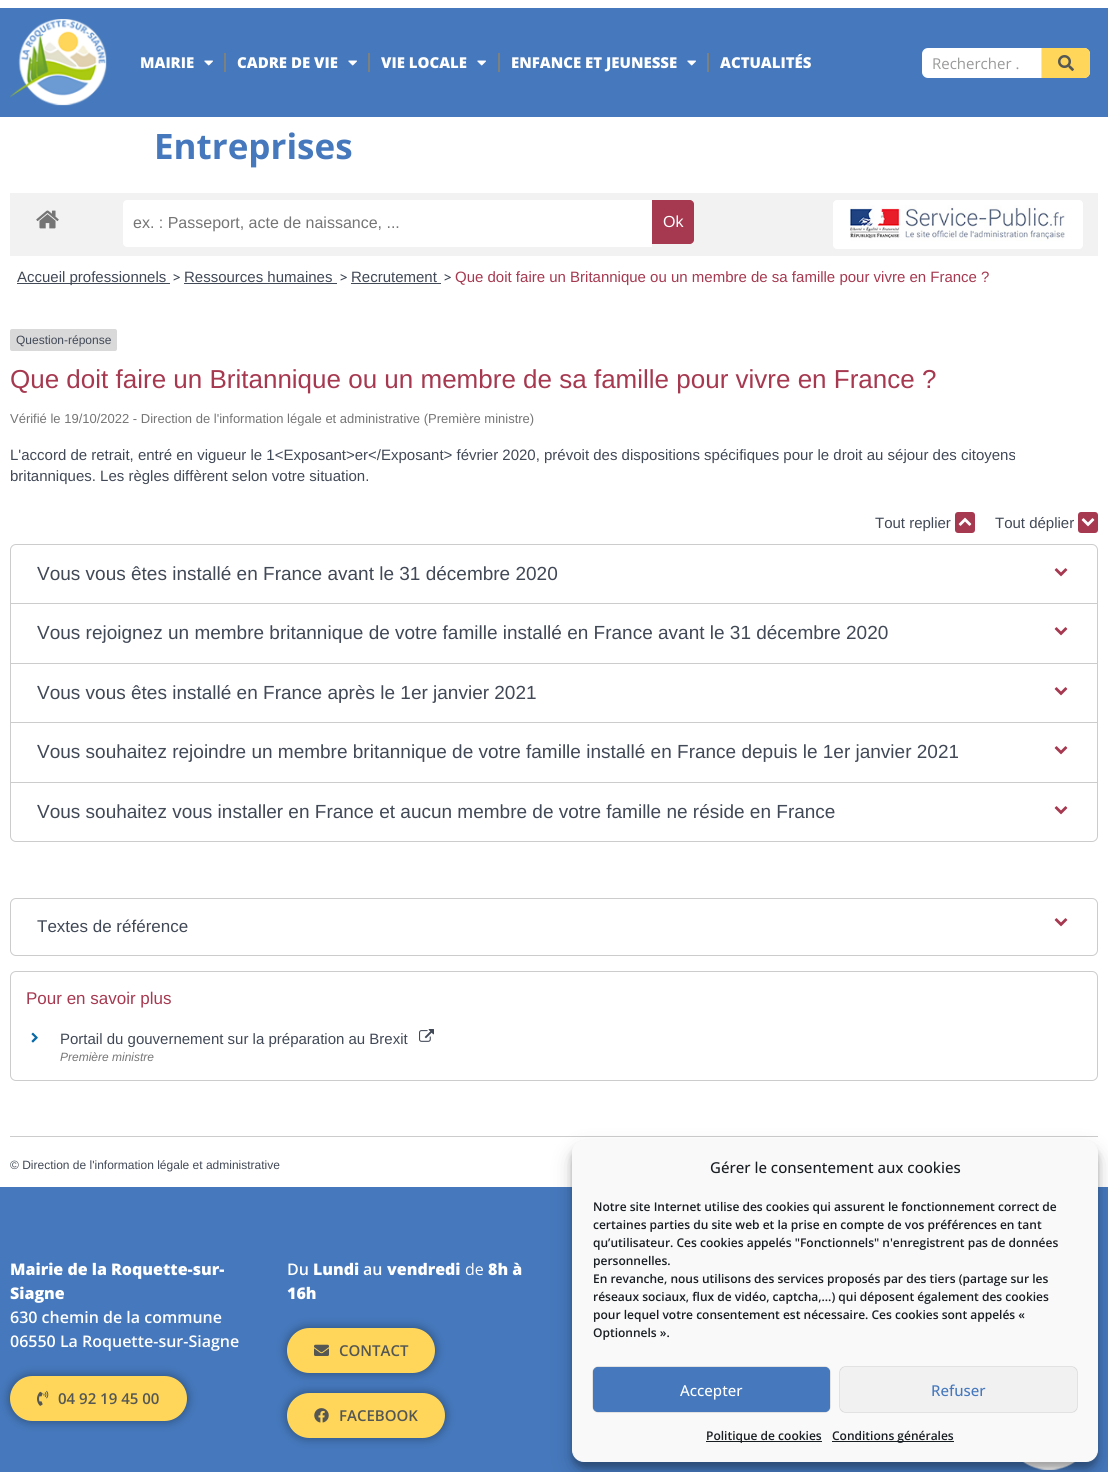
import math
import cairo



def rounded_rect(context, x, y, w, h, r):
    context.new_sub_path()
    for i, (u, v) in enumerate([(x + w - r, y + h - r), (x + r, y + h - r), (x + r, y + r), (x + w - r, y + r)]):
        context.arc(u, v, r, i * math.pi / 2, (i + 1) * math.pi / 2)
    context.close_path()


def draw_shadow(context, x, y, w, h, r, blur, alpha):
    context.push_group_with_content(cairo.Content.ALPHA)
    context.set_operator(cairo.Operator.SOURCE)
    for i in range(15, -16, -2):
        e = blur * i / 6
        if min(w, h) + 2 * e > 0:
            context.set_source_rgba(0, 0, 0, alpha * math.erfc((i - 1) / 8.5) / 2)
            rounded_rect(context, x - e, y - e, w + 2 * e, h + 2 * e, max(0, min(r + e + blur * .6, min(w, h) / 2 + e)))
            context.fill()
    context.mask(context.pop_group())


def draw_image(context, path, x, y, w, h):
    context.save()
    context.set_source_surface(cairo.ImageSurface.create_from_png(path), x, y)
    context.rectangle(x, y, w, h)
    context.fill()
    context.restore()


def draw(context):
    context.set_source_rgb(1, 1, 1)
    context.paint()
    context.set_source_rgb(69 / 255, 120 / 255, 188 / 255)
    context.rectangle(0, 8, 1108, 109)
    context.fill()
    draw_image(context, "images/1.png", 10, 19, 97, 87)
    draw_image(context, "images/2.png", 204, 60, 9, 6)
    context.set_source_rgb(125 / 255, 129 / 255, 125 / 255)
    context.rectangle(224, 53, 2, 19)
    context.fill()
    draw_image(context, "images/2.png", 348, 60, 9, 6)
    context.rectangle(368, 53, 2, 19)
    context.fill()
    draw_image(context, "images/2.png", 477, 60, 9, 6)
    context.rectangle(498, 53, 2, 19)
    context.fill()
    draw_image(context, "images/2.png", 687, 60, 9, 6)
    context.rectangle(707, 53, 2, 19)
    context.fill()
    context.set_source_rgb(1, 1, 1)
    rounded_rect(context, 922, 48, 168, 30, 6)
    context.fill()
    context.save()
    context.rectangle(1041, 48, 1, 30)
    context.clip()
    context.set_source_rgb(0, 0, 0)
    draw_shadow(context, 1042, 48, 48, 30, 0, 0.5, 0.39)
    context.restore()
    context.set_source_rgb(1, 214 / 255, 90 / 255)
    context.new_path()
    context.move_to(1042, 48)
    context.line_to(1084, 48)
    context.curve_to(1087.5, 48, 1090, 50.5, 1090, 54)
    context.line_to(1090, 72)
    context.curve_to(1090, 75.5, 1087.5, 78, 1084, 78)
    context.line_to(1042, 78)
    context.close_path()
    context.fill()
    draw_image(context, "images/3.png", 1058, 55, 16, 16)
    context.set_source_rgb(242 / 255, 242 / 255, 242 / 255)
    context.rectangle(10, 193, 1088, 63)
    context.fill()
    draw_image(context, "images/4.png", 36, 210, 23, 19)
    context.set_source_rgb(1, 1, 1)
    context.new_path()
    context.move_to(127, 200)
    context.line_to(652, 200)
    context.line_to(652, 247)
    context.line_to(127, 247)
    context.curve_to(125, 247, 123, 245, 123, 243)
    context.line_to(123, 204)
    context.curve_to(123, 202, 125, 200, 127, 200)
    context.close_path()
    context.fill()
    context.set_source_rgb(166 / 255, 57 / 255, 80 / 255)
    context.new_path()
    context.move_to(652, 200)
    context.line_to(690, 200)
    context.curve_to(692, 200, 694, 202, 694, 204)
    context.line_to(694, 240)
    context.curve_to(694, 242, 692, 244, 690, 244)
    context.line_to(652, 244)
    context.close_path()
    context.fill()
    context.set_source_rgb(1, 1, 1)
    rounded_rect(context, 833, 200, 250, 49, 4)
    context.fill()
    draw_image(context, "images/5.png", 850, 205, 216, 36)
    context.set_source_rgb(65 / 255, 72 / 255, 86 / 255)
    context.rectangle(17, 283, 153, 1)
    context.fill()
    context.rectangle(184, 283, 153, 1)
    context.fill()
    context.rectangle(351, 283, 90, 1)
    context.fill()
    context.set_source_rgb(217 / 255, 217 / 255, 217 / 255)
    rounded_rect(context, 10, 329, 107, 22, 2)
    context.fill()
    context.set_source_rgb(166 / 255, 57 / 255, 80 / 255)
    rounded_rect(context, 955, 512, 20, 21, 3)
    context.fill()
    draw_image(context, "images/6.png", 958, 517, 14, 9)
    rounded_rect(context, 1078, 512, 20, 21, 3)
    context.fill()
    draw_image(context, "images/7.png", 1081, 518, 14, 9)
    rounded_rect(context, 10.5, 544.5, 1087, 297, 5.5)
    context.set_source_rgb(204 / 255, 204 / 255, 204 / 255)
    context.set_line_width(1)
    context.stroke()
    draw_image(context, "images/8.png", 1054, 568, 14, 9)
    context.rectangle(11, 603, 1086, 1)
    context.fill()
    draw_image(context, "images/8.png", 1054, 627, 14, 9)
    context.rectangle(11, 663, 1086, 1)
    context.fill()
    draw_image(context, "images/8.png", 1054, 687, 14, 9)
    context.rectangle(11, 722, 1086, 1)
    context.fill()
    draw_image(context, "images/8.png", 1054, 746, 14, 9)
    context.rectangle(11, 782, 1086, 1)
    context.fill()
    draw_image(context, "images/8.png", 1054, 806, 14, 9)
    rounded_rect(context, 10.5, 898.5, 1087, 57, 5.5)
    context.stroke()
    draw_image(context, "images/8.png", 1054, 918, 14, 9)
    rounded_rect(context, 10.5, 971.5, 1087, 109, 5.5)
    context.stroke()
    draw_image(context, "images/9.png", 31, 1032, 7, 11)
    draw_image(context, "images/10.png", 419, 1029, 15, 13)
    context.rectangle(10, 1136, 1088, 1)
    context.fill()
    context.set_source_rgb(69 / 255, 120 / 255, 188 / 255)
    context.rectangle(0, 1187, 1108, 285)
    context.fill()
    context.set_source_rgb(0, 0, 0)
    draw_shadow(context, 10, 1376, 177, 45, 22.5, 5, 0.37)
    context.set_source_rgb(1, 214 / 255, 90 / 255)
    rounded_rect(context, 11.5, 1377.5, 174, 42, 21)
    context.fill_preserve()
    context.set_line_width(3)
    context.stroke()
    draw_image(context, "images/11.png", 37, 1390, 12, 16)
    context.set_source_rgb(0, 0, 0)
    draw_shadow(context, 287, 1328, 148, 45, 22.5, 5, 0.37)
    context.set_source_rgb(1, 214 / 255, 90 / 255)
    rounded_rect(context, 288.5, 1329.5, 145, 42, 21)
    context.fill_preserve()
    context.stroke()
    draw_image(context, "images/12.png", 314, 1344, 15, 12)
    context.set_source_rgb(0, 0, 0)
    draw_shadow(context, 287, 1393, 158, 45, 22.5, 5, 0.37)
    context.set_source_rgb(1, 214 / 255, 90 / 255)
    rounded_rect(context, 288.5, 1394.5, 155, 42, 21)
    context.fill_preserve()
    context.stroke()
    draw_image(context, "images/13.png", 314, 1408, 15, 15)
    draw_image(context, "images/14.png", 1022, 1462, 54, 8)
    context.set_source_rgb(0, 0, 0)
    draw_shadow(context, 572, 1146, 526, 322, 12, 3, 0.23)
    draw_shadow(context, 572, 1150, 526, 322, 12, 10, 0.19)
    context.set_source_rgb(249 / 255, 249 / 255, 249 / 255)
    rounded_rect(context, 572.5, 1140.5, 525, 321, 11.5)
    context.fill_preserve()
    context.set_line_width(1)
    context.stroke()
    context.set_source_rgb(0, 0, 0)
    draw_shadow(context, 593, 1367, 237, 45, 5, 0.5, 0.39)
    context.set_source_rgb(69 / 255, 120 / 255, 188 / 255)
    rounded_rect(context, 593.5, 1367.5, 236, 44, 4.5)
    context.fill_preserve()
    context.stroke()
    context.set_source_rgb(0, 0, 0)
    draw_shadow(context, 840, 1367, 237, 45, 5, 0.5, 0.39)
    context.set_source_rgb(241 / 255, 241 / 255, 241 / 255)
    rounded_rect(context, 840.5, 1367.5, 236, 44, 4.5)
    context.fill_preserve()
    context.stroke()
    context.set_source_rgb(25 / 255, 30 / 255, 35 / 255)
    context.rectangle(706, 1441, 116, 1)
    context.fill()
    context.rectangle(832, 1441, 122, 1)
    context.fill()
    context.select_font_face("Open Sans ExtraBold")
    context.set_font_size(15)
    context.set_source_rgb(1, 1, 1)
    context.move_to(140, 68)
    context.show_text("MAIRIE")
    context.move_to(237, 68)
    context.show_text("CADRE DE VIE")
    context.move_to(381, 68)
    context.show_text("VIE LOCALE")
    context.move_to(511, 68)
    context.show_text("ENFANCE ET JEUNESSE")
    context.move_to(720, 68)
    context.show_text("ACTUALITÉS")
    context.select_font_face("Open Sans")
    context.set_source_rgb(152 / 255, 154 / 255, 152 / 255)
    context.move_to(932, 69)
    context.show_text("Rechercher .")
    context.select_font_face("Open Sans", cairo.FontSlant.NORMAL, cairo.FontWeight.BOLD)
    context.set_font_size(35)
    context.set_source_rgb(69 / 255, 120 / 255, 188 / 255)
    context.move_to(154, 159)
    context.show_text("Entreprises")
    context.select_font_face("Liberation Sans")
    context.set_font_size(16)
    context.set_source_rgb(117 / 255, 117 / 255, 117 / 255)
    context.move_to(133, 228)
    context.show_text("ex. : Passeport, acte de naissance, ...")
    context.set_source_rgb(1, 1, 1)
    context.move_to(663, 227)
    context.show_text("Ok")
    context.set_font_size(15)
    context.set_source_rgb(65 / 255, 72 / 255, 86 / 255)
    context.move_to(17, 282)
    context.show_text("Accueil professionnels")
    context.select_font_face("Open Sans SemiBold")
    context.set_font_size(13)
    context.move_to(173, 282)
    context.show_text(">")
    context.select_font_face("Liberation Sans")
    context.set_font_size(15)
    context.move_to(184, 282)
    context.show_text("Ressources humaines")
    context.select_font_face("Open Sans SemiBold")
    context.set_font_size(13)
    context.move_to(340, 282)
    context.show_text(">")
    context.select_font_face("Liberation Sans")
    context.set_font_size(15)
    context.move_to(351, 282)
    context.show_text("Recrutement")
    context.select_font_face("Open Sans SemiBold")
    context.set_font_size(13)
    context.move_to(444, 282)
    context.show_text(">")
    context.select_font_face("Liberation Sans")
    context.set_font_size(15)
    context.set_source_rgb(166 / 255, 57 / 255, 80 / 255)
    context.move_to(455, 282)
    context.show_text("Que doit faire un Britannique ou un membre de sa famille pour vivre en France ?")
    context.set_font_size(12)
    context.set_source_rgb(65 / 255, 72 / 255, 86 / 255)
    context.move_to(16, 344)
    context.show_text("Question-réponse")
    context.set_font_size(26)
    context.set_source_rgb(166 / 255, 57 / 255, 80 / 255)
    context.move_to(10, 388)
    context.show_text("Que doit faire un Britannique ou un membre de sa famille pour vivre en France ?")
    context.set_font_size(13)
    context.set_source_rgb(117 / 255, 117 / 255, 117 / 255)
    context.move_to(10, 423)
    context.show_text("Vérifié le 19/10/2022 - Direction de l'information légale et administrative (Première ministre)")
    context.set_font_size(15)
    context.set_source_rgb(65 / 255, 72 / 255, 86 / 255)
    context.move_to(10, 460)
    context.show_text("L'accord de retrait, entré en vigueur le 1<Exposant>er</Exposant> février 2020, prévoit des dispositions spécifiques pour le droit au séjour des citoyens")
    context.move_to(10, 481)
    context.show_text("britanniques. Les règles diffèrent selon votre situation.")
    context.move_to(875, 528)
    context.show_text("Tout replier")
    context.move_to(995, 528)
    context.show_text("Tout déplier")
    context.set_font_size(19)
    context.move_to(37, 580)
    context.show_text("Vous vous êtes installé en France avant le 31 décembre 2020")
    context.move_to(37, 639)
    context.show_text("Vous rejoignez un membre britannique de votre famille installé en France avant le 31 décembre 2020")
    context.move_to(37, 699)
    context.show_text("Vous vous êtes installé en France après le 1er janvier 2021")
    context.move_to(37, 758)
    context.show_text("Vous souhaitez rejoindre un membre britannique de votre famille installé en France depuis le 1er janvier 2021")
    context.move_to(37, 818)
    context.show_text("Vous souhaitez vous installer en France et aucun membre de votre famille ne réside en France")
    context.set_font_size(17)
    context.move_to(37, 932)
    context.show_text("Textes de référence")
    context.set_source_rgb(166 / 255, 57 / 255, 80 / 255)
    context.move_to(26, 1004)
    context.show_text("Pour en savoir plus")
    context.set_font_size(15)
    context.set_source_rgb(65 / 255, 72 / 255, 86 / 255)
    context.move_to(60, 1044)
    context.show_text("Portail du gouvernement sur la préparation au Brexit")
    context.select_font_face("Liberation Sans", cairo.FontSlant.ITALIC)
    context.set_font_size(12)
    context.set_source_rgb(117 / 255, 117 / 255, 117 / 255)
    context.move_to(60, 1061)
    context.show_text("Première ministre")
    context.select_font_face("Liberation Sans")
    context.set_source_rgb(65 / 255, 72 / 255, 86 / 255)
    context.move_to(10, 1169)
    context.show_text("© Direction de l'information légale et administrative")
    context.select_font_face("Open Sans ExtraBold")
    context.set_font_size(16)
    context.set_source_rgb(1, 1, 1)
    context.move_to(10, 1275)
    context.show_text("Mairie de la Roquette-sur-")
    context.move_to(10, 1299)
    context.show_text("Siagne")
    context.select_font_face("Open Sans SemiBold")
    context.move_to(10, 1323)
    context.show_text("630 chemin de la commune")
    context.move_to(10, 1347)
    context.show_text("06550 La Roquette-sur-Siagne")
    context.set_font_size(15)
    context.set_source_rgb(84 / 255, 87 / 255, 84 / 255)
    context.move_to(58, 1404)
    context.show_text("04 92 19 45 00")
    context.set_font_size(16)
    context.set_source_rgb(1, 1, 1)
    context.move_to(287, 1275)
    context.show_text("Du")
    context.select_font_face("Open Sans ExtraBold")
    context.move_to(313, 1275)
    context.show_text("Lundi")
    context.select_font_face("Open Sans SemiBold")
    context.move_to(363, 1275)
    context.show_text("au")
    context.select_font_face("Open Sans ExtraBold")
    context.move_to(387, 1275)
    context.show_text("vendredi")
    context.select_font_face("Open Sans")
    context.move_to(465, 1275)
    context.show_text("de")
    context.select_font_face("Open Sans ExtraBold")
    context.move_to(488, 1275)
    context.show_text("8h à")
    context.move_to(287, 1299)
    context.show_text("16h")
    context.select_font_face("Open Sans SemiBold")
    context.set_font_size(15)
    context.set_source_rgb(84 / 255, 87 / 255, 84 / 255)
    context.move_to(339, 1356)
    context.show_text("CONTACT")
    context.move_to(339, 1421)
    context.show_text("FACEBOOK")
    context.select_font_face("Open Sans Medium")
    context.set_source_rgb(25 / 255, 30 / 255, 35 / 255)
    context.move_to(710, 1173)
    context.show_text("Gérer le consentement aux cookies")
    context.select_font_face("Open Sans SemiBold")
    context.set_font_size(12)
    context.move_to(593, 1211)
    context.show_text("Notre site Internet utilise des cookies qui assurent le fonctionnement correct de")
    context.move_to(593, 1229)
    context.show_text("certaines parties du site web et la prise en compte de vos préférences en tant")
    context.move_to(593, 1247)
    context.show_text("qu’utilisateur. Ces cookies appelés \"Fonctionnels\" n'enregistrent pas de données")
    context.move_to(593, 1265)
    context.show_text("personnelles.")
    context.move_to(593, 1283)
    context.show_text("En revanche, nous utilisons des services proposés par des tiers (partage sur les")
    context.move_to(593, 1301)
    context.show_text("réseaux sociaux, flux de vidéo, captcha,...) qui déposent également des cookies")
    context.move_to(593, 1319)
    context.show_text("pour lequel votre consentement est nécessaire. Ces cookies sont appelés «")
    context.move_to(593, 1337)
    context.show_text("Optionnels ».")
    context.select_font_face("Open Sans Medium")
    context.set_font_size(15)
    context.set_source_rgb(1, 1, 1)
    context.move_to(680, 1396)
    context.show_text("Accepter")
    context.set_source_rgb(69 / 255, 120 / 255, 188 / 255)
    context.move_to(931, 1396)
    context.show_text("Refuser")
    context.select_font_face("Open Sans SemiBold")
    context.set_font_size(12)
    context.set_source_rgb(25 / 255, 30 / 255, 35 / 255)
    context.move_to(706, 1440)
    context.show_text("Politique de cookies")
    context.move_to(832, 1440)
    context.show_text("Conditions générales")


surface = cairo.ImageSurface(cairo.Format.RGB24, 1108, 1472)
context = cairo.Context(surface)
options = cairo.FontOptions()
options.set_hint_metrics(cairo.HintMetrics.OFF)
options.set_hint_style(cairo.HintStyle.NONE)
context.set_font_options(options)
context.set_miter_limit(4)
draw(context)
surface.write_to_png("out.png")
